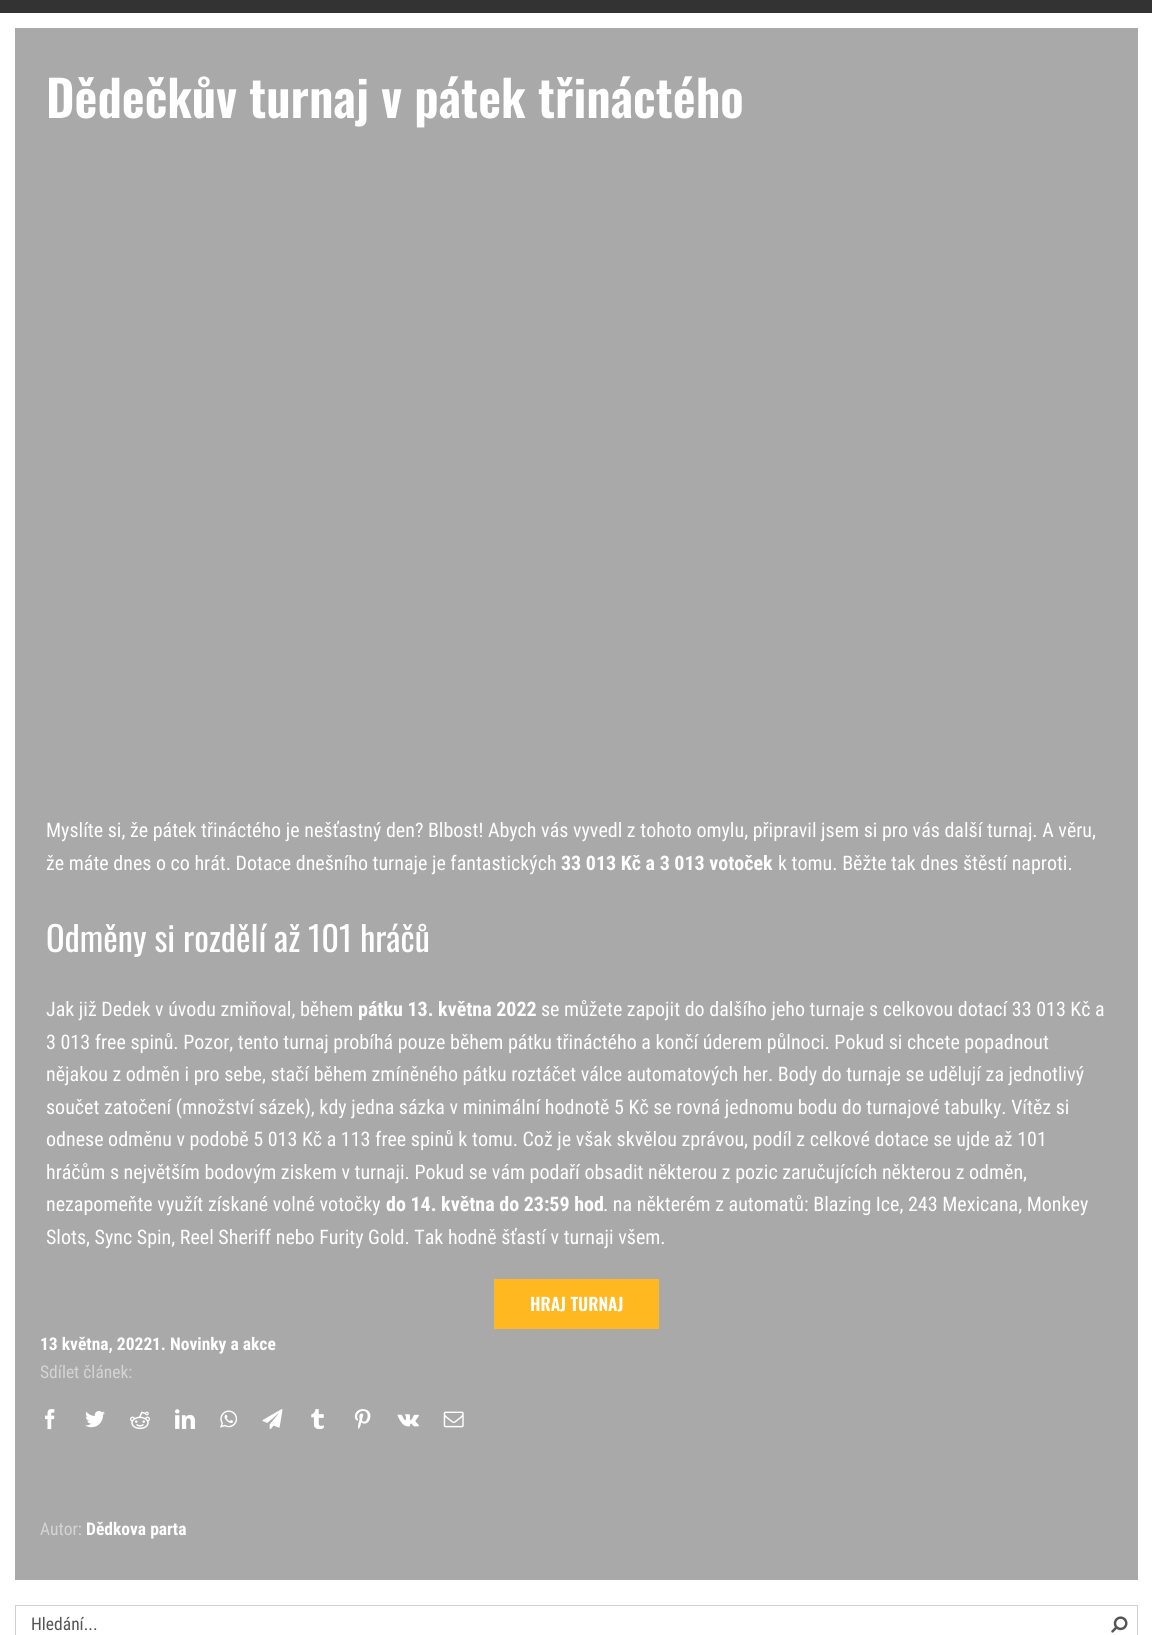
import math
import cairo



def draw_image(context, path, x, y, w, h):
    context.save()
    context.set_source_surface(cairo.ImageSurface.create_from_png(path), x, y)
    context.rectangle(x, y, w, h)
    context.fill()
    context.restore()


def draw(context):
    context.set_source_rgb(1, 1, 1)
    context.paint()
    context.set_source_rgb(51 / 255, 51 / 255, 51 / 255)
    context.rectangle(0, 0, 1152, 13)
    context.fill()
    context.set_source_rgb(169 / 255, 169 / 255, 169 / 255)
    context.rectangle(15, 28, 1123, 1552)
    context.fill()
    context.set_source_rgb(1, 184 / 255, 32 / 255)
    context.rectangle(494, 1279, 165, 50)
    context.fill()
    draw_image(context, "images/1.png", 45, 1409, 10, 21)
    draw_image(context, "images/2.png", 85, 1411, 20, 17)
    draw_image(context, "images/3.png", 130, 1411, 20, 19)
    draw_image(context, "images/4.png", 175, 1409, 20, 20)
    draw_image(context, "images/5.png", 220, 1410, 18, 18)
    draw_image(context, "images/6.png", 262, 1409, 21, 20)
    draw_image(context, "images/7.png", 311, 1409, 13, 21)
    draw_image(context, "images/8.png", 354, 1409, 17, 20)
    draw_image(context, "images/9.png", 397, 1414, 22, 13)
    draw_image(context, "images/10.png", 443, 1411, 21, 17)
    context.rectangle(15.5, 1605.5, 1122, 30)
    context.set_source_rgb(210 / 255, 210 / 255, 210 / 255)
    context.set_line_width(1)
    context.stroke()
    draw_image(context, "images/11.png", 1111, 1616, 17, 17)
    context.select_font_face("Oswald SemiBold")
    context.set_font_size(49.75)
    context.set_source_rgb(1, 1, 1)
    context.move_to(46, 118)
    context.show_text("Dědečkův turnaj v pátek třináctého")
    context.select_font_face("Roboto Condensed")
    context.set_font_size(20)
    context.move_to(46, 837)
    context.show_text("Myslíte si, že pátek třináctého je nešťastný den? Blbost! Abych vás vyvedl z tohoto omylu, připravil jsem si pro vás další turnaj. A věru,")
    context.move_to(46, 870)
    context.show_text("že máte dnes o co hrát. Dotace dnešního turnaje je fantastických")
    context.select_font_face("Roboto Condensed", cairo.FontSlant.NORMAL, cairo.FontWeight.BOLD)
    context.move_to(561, 870)
    context.show_text("33 013 Kč a 3 013 votoček")
    context.select_font_face("Roboto Condensed")
    context.move_to(778, 870)
    context.show_text("k tomu. Běžte tak dnes štěstí naproti.")
    context.select_font_face("Oswald")
    context.set_font_size(34.5)
    context.move_to(46, 952)
    context.show_text("Odměny si rozdělí až 101 hráčů")
    context.select_font_face("Roboto Condensed")
    context.set_font_size(20)
    context.move_to(46, 1016)
    context.show_text("Jak již Dedek v úvodu zmiňoval, během")
    context.select_font_face("Roboto Condensed", cairo.FontSlant.NORMAL, cairo.FontWeight.BOLD)
    context.move_to(358, 1016)
    context.show_text("pátku 13. května 2022")
    context.select_font_face("Roboto Condensed")
    context.move_to(541, 1016)
    context.show_text("se můžete zapojit do dalšího jeho turnaje s celkovou dotací 33 013 Kč a")
    context.move_to(46, 1049)
    context.show_text("3 013 free spinů. Pozor, tento turnaj probíhá pouze během pátku třináctého a končí úderem půlnoci. Pokud si chcete popadnout")
    context.move_to(46, 1081)
    context.show_text("nějakou z odměn i pro sebe, stačí během zmíněného pátku roztáčet válce automatových her. Body do turnaje se udělují za jednotlivý")
    context.move_to(46, 1114)
    context.show_text("součet zatočení (množství sázek), kdy jedna sázka v minimální hodnotě 5 Kč se rovná jednomu bodu do turnajové tabulky. Vítěz si")
    context.move_to(46, 1146)
    context.show_text("odnese odměnu v podobě 5 013 Kč a 113 free spinů k tomu. Což je však skvělou zprávou, podíl z celkové dotace se ujde až 101")
    context.move_to(46, 1179)
    context.show_text("hráčům s největším bodovým ziskem v turnaji. Pokud se vám podaří obsadit některou z pozic zaručujících některou z odměn,")
    context.move_to(46, 1211)
    context.show_text("nezapomeňte využít získané volné votočky")
    context.select_font_face("Roboto Condensed", cairo.FontSlant.NORMAL, cairo.FontWeight.BOLD)
    context.move_to(386, 1211)
    context.show_text("do 14. května do 23:59 hod")
    context.select_font_face("Roboto Condensed")
    context.move_to(603, 1211)
    context.show_text(". na některém z automatů: Blazing Ice, 243 Mexicana, Monkey")
    context.move_to(46, 1244)
    context.show_text("Slots, Sync Spin, Reel Sheriff nebo Furity Gold. Tak hodně šťastí v turnaji všem.")
    context.select_font_face("Oswald SemiBold")
    context.set_font_size(17.5)
    context.move_to(530, 1311)
    context.show_text("HRAJ TURNAJ")
    context.select_font_face("Roboto Condensed", cairo.FontSlant.NORMAL, cairo.FontWeight.BOLD)
    context.move_to(40, 1350)
    context.show_text("13 května, 2022")
    context.move_to(152, 1350)
    context.show_text("1. Novinky a akce")
    context.select_font_face("Roboto Condensed")
    context.set_source_rgb(212 / 255, 212 / 255, 212 / 255)
    context.move_to(40, 1378)
    context.show_text("Sdílet článek:")
    context.move_to(40, 1535)
    context.show_text("Autor:")
    context.select_font_face("Roboto Condensed", cairo.FontSlant.NORMAL, cairo.FontWeight.BOLD)
    context.set_source_rgb(1, 1, 1)
    context.move_to(86, 1535)
    context.show_text("Dědkova parta")
    context.select_font_face("Roboto Condensed")
    context.set_source_rgb(85 / 255, 85 / 255, 85 / 255)
    context.move_to(31, 1630)
    context.show_text("Hledání...")


surface = cairo.ImageSurface(cairo.Format.RGB24, 1152, 1635)
context = cairo.Context(surface)
options = cairo.FontOptions()
options.set_hint_metrics(cairo.HintMetrics.OFF)
options.set_hint_style(cairo.HintStyle.NONE)
context.set_font_options(options)
context.set_miter_limit(4)
draw(context)
surface.write_to_png("out.png")
